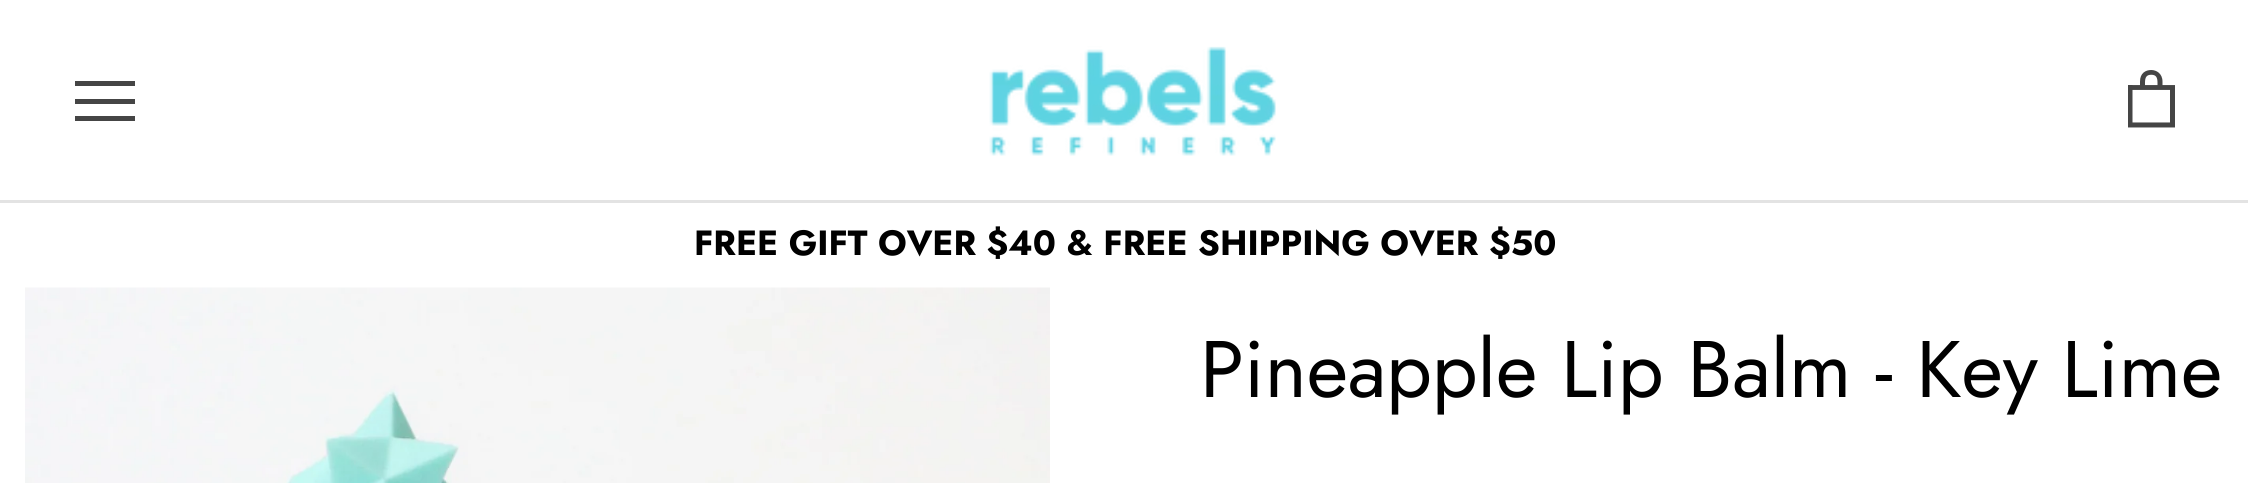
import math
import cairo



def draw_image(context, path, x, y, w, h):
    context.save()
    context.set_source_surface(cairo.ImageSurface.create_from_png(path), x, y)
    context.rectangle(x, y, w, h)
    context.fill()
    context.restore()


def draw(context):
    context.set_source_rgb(1, 1, 1)
    context.paint()
    context.set_source_rgb(227 / 255, 227 / 255, 227 / 255)
    context.rectangle(0, 200, 2248, 3)
    context.fill()
    context.set_source_rgb(69 / 255, 69 / 255, 69 / 255)
    context.new_path()
    context.move_to(75, 121)
    context.line_to(75, 116)
    context.line_to(135, 116)
    context.line_to(135, 121)
    context.close_path()
    context.move_to(75, 99)
    context.line_to(135, 99)
    context.line_to(135, 104)
    context.line_to(75, 104)
    context.close_path()
    context.move_to(75, 81)
    context.line_to(135, 81)
    context.line_to(135, 86)
    context.line_to(75, 86)
    context.close_path()
    context.fill()
    draw_image(context, "images/1.png", 989, 46, 287, 110)
    draw_image(context, "images/2.png", 2128, 70, 47, 58)
    draw_image(context, "images/3.png", 25, 287, 1025, 196)
    context.select_font_face("Jost", cairo.FontSlant.NORMAL, cairo.FontWeight.BOLD)
    context.set_font_size(35)
    context.set_source_rgb(0, 0, 0)
    context.move_to(694, 255)
    context.show_text("FREE GIFT OVER $40 & FREE SHIPPING OVER $50")
    context.select_font_face("Jost")
    context.set_font_size(80)
    context.move_to(1200, 397)
    context.show_text("Pineapple Lip Balm - Key Lime")


surface = cairo.ImageSurface(cairo.Format.RGB24, 2248, 483)
context = cairo.Context(surface)
options = cairo.FontOptions()
options.set_hint_metrics(cairo.HintMetrics.OFF)
options.set_hint_style(cairo.HintStyle.NONE)
context.set_font_options(options)
context.set_miter_limit(4)
draw(context)
surface.write_to_png("out.png")
